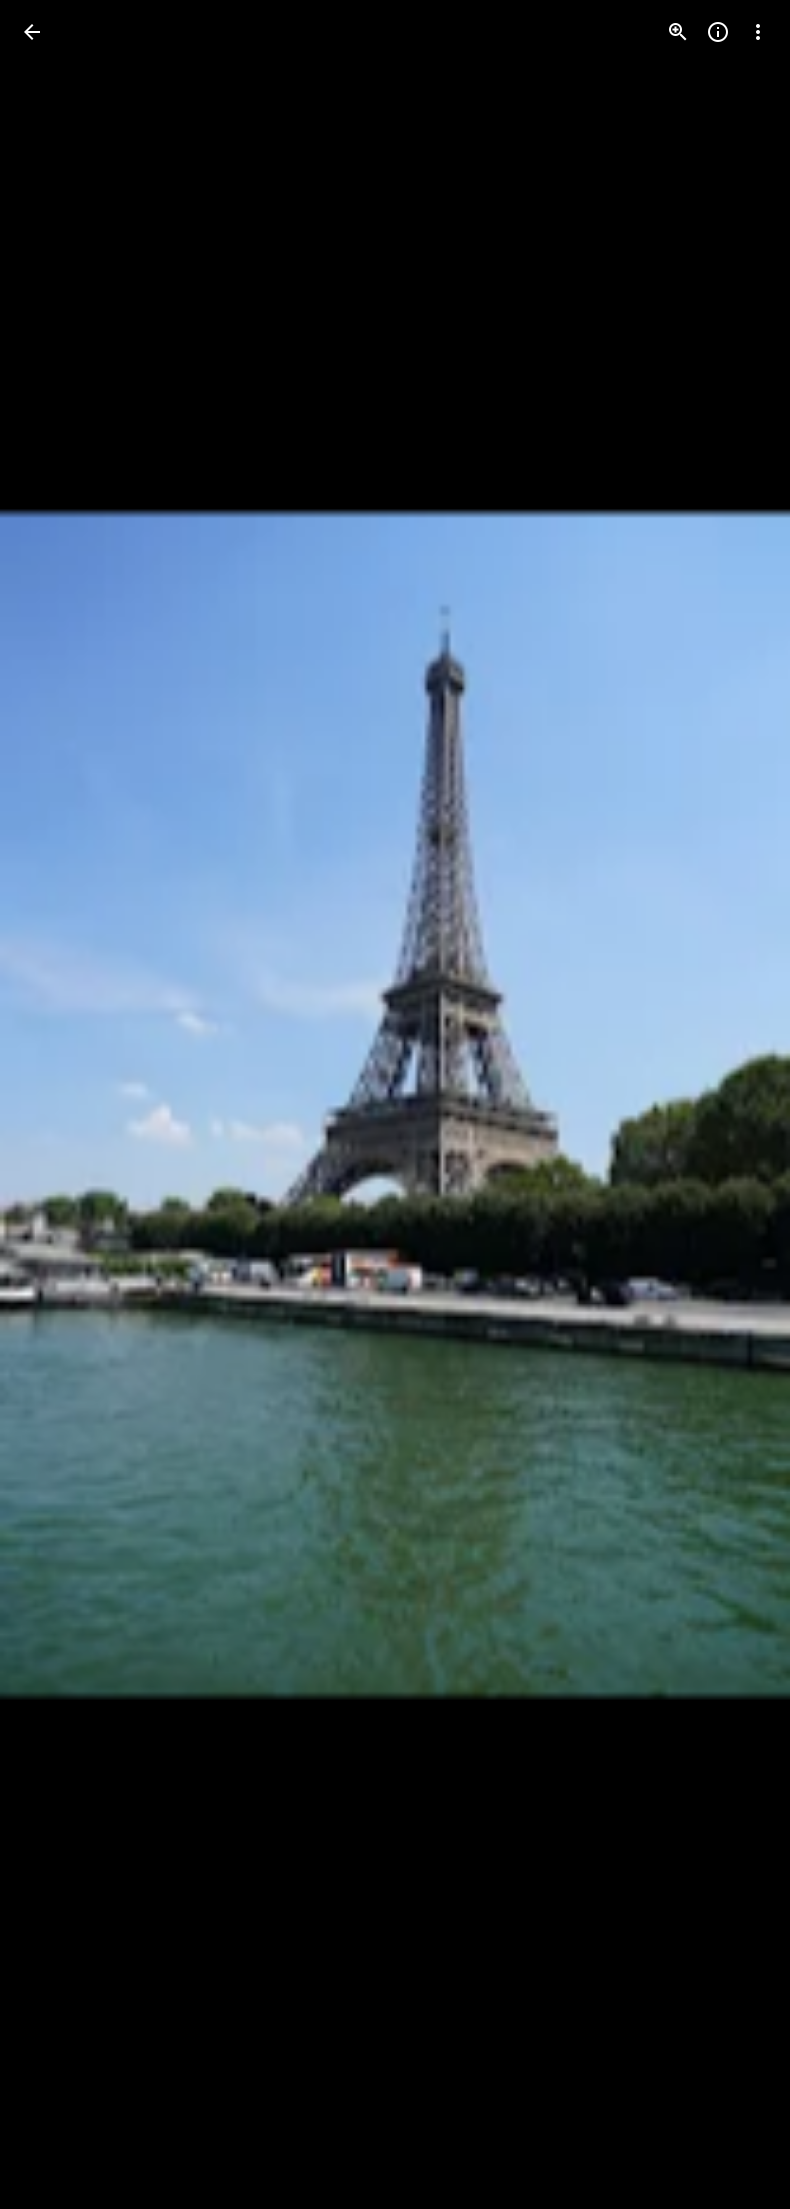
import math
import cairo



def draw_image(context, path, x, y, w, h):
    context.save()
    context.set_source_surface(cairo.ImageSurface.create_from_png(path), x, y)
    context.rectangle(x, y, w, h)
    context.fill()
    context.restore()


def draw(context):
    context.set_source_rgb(0, 0, 0)
    context.paint()
    draw_image(context, "images/1.png", 24, 24, 16, 16)
    draw_image(context, "images/2.png", 669, 23, 18, 18)
    draw_image(context, "images/3.png", 708, 22, 20, 20)
    draw_image(context, "images/4.png", 756, 24, 4, 16)
    draw_image(context, "images/5.png", 0, 509, 790, 1191)


surface = cairo.ImageSurface(cairo.Format.RGB24, 790, 2209)
context = cairo.Context(surface)
options = cairo.FontOptions()
options.set_hint_metrics(cairo.HintMetrics.OFF)
options.set_hint_style(cairo.HintStyle.NONE)
context.set_font_options(options)
context.set_miter_limit(4)
draw(context)
surface.write_to_png("out.png")
